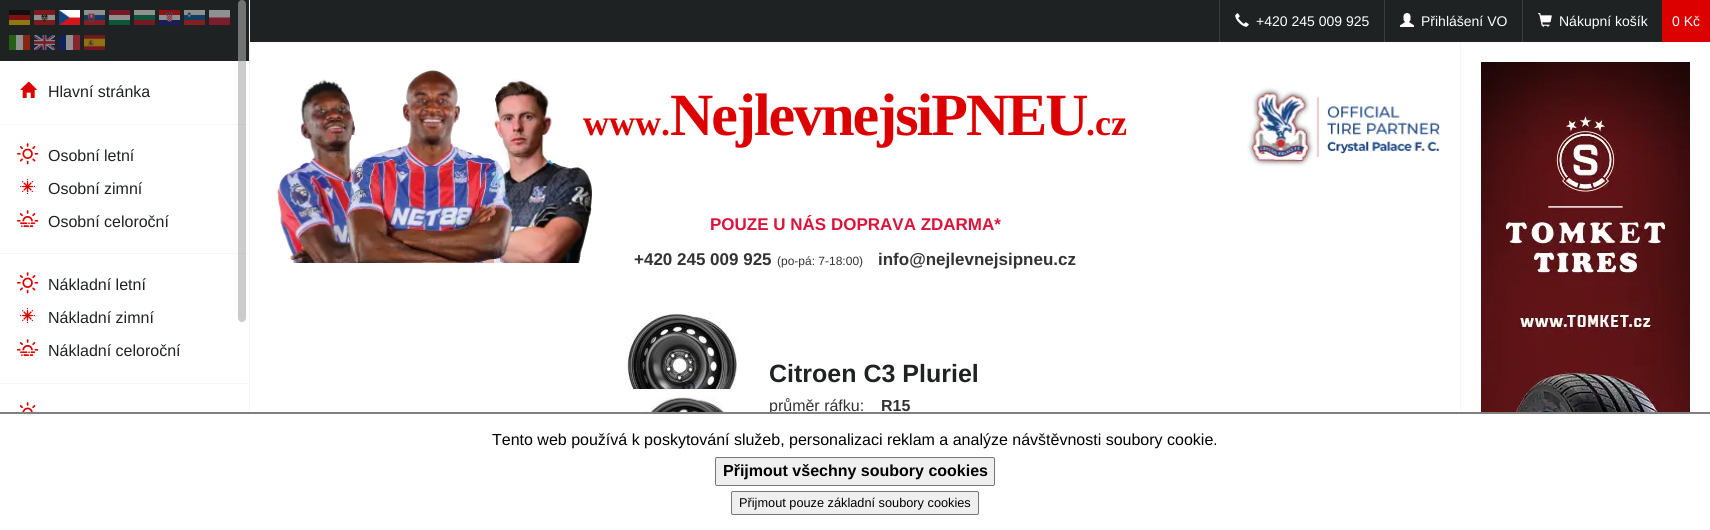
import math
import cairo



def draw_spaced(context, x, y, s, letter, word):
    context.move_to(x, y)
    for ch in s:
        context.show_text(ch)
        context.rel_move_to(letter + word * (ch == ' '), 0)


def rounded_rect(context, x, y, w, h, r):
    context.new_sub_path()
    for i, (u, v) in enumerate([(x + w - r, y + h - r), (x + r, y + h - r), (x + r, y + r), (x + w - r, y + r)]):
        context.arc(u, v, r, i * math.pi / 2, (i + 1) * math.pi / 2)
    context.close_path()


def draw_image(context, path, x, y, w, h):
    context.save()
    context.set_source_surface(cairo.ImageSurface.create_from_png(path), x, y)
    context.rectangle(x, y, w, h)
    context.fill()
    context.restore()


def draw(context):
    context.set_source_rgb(1, 1, 1)
    context.paint()
    context.set_source_rgb(31 / 255, 34 / 255, 34 / 255)
    context.rectangle(250, 0, 1412, 42)
    context.fill()
    context.set_source_rgb(58 / 255, 62 / 255, 62 / 255)
    context.rectangle(1219, 0, 1, 42)
    context.fill()
    draw_image(context, "images/1.png", 1235, 13, 14, 14)
    context.rectangle(1384, 0, 1, 42)
    context.fill()
    draw_image(context, "images/2.png", 1400, 13, 14, 14)
    context.rectangle(1522, 0, 1, 42)
    context.fill()
    draw_image(context, "images/3.png", 1538, 13, 14, 14)
    context.set_source_rgb(221 / 255, 0, 0)
    context.rectangle(1662, 0, 48, 42)
    context.fill()
    context.set_source_rgb(245 / 255, 245 / 255, 245 / 255)
    context.rectangle(249, 0, 1, 412)
    context.fill()
    context.set_source_rgb(31 / 255, 34 / 255, 34 / 255)
    context.rectangle(0, 0, 249, 61)
    context.fill()
    draw_image(context, "images/4.png", 9, 10, 21, 15)
    draw_image(context, "images/5.png", 34, 10, 21, 15)
    draw_image(context, "images/6.png", 59, 10, 21, 15)
    draw_image(context, "images/7.png", 84, 10, 21, 15)
    draw_image(context, "images/8.png", 109, 10, 21, 15)
    draw_image(context, "images/9.png", 134, 10, 21, 15)
    draw_image(context, "images/10.png", 159, 10, 21, 15)
    draw_image(context, "images/11.png", 184, 10, 21, 15)
    draw_image(context, "images/12.png", 209, 10, 21, 15)
    draw_image(context, "images/13.png", 9, 35, 21, 15)
    draw_image(context, "images/14.png", 34, 35, 21, 15)
    draw_image(context, "images/15.png", 59, 35, 21, 15)
    draw_image(context, "images/16.png", 84, 35, 21, 15)
    context.set_source_rgb(245 / 255, 245 / 255, 245 / 255)
    context.rectangle(0, 124, 249, 1)
    context.fill()
    draw_image(context, "images/17.png", 20, 81, 18, 17)
    context.rectangle(0, 253, 249, 1)
    context.fill()
    draw_image(context, "images/18.png", 17, 143, 22, 22)
    draw_image(context, "images/19.png", 20, 179, 15, 15)
    draw_image(context, "images/20.png", 17, 210, 22, 17)
    context.rectangle(0, 383, 249, 1)
    context.fill()
    draw_image(context, "images/18.png", 17, 272, 22, 22)
    draw_image(context, "images/19.png", 20, 308, 15, 15)
    draw_image(context, "images/20.png", 17, 339, 22, 17)
    draw_image(context, "images/21.png", 18, 402, 20, 10)
    context.set_source_rgba(170 / 255, 170 / 255, 170 / 255, 0.6)
    rounded_rect(context, 238, 0, 8, 322, 4)
    context.fill()
    draw_image(context, "images/22.png", 277, 70, 1163, 193)
    draw_image(context, "images/23.png", 625, 312, 112, 77)
    draw_image(context, "images/24.png", 636, 396, 103, 16)
    context.set_source_rgb(245 / 255, 245 / 255, 245 / 255)
    context.rectangle(1460, 42, 1, 370)
    context.fill()
    draw_image(context, "images/25.png", 1481, 62, 209, 350)
    context.set_source_rgb(239 / 255, 239 / 255, 239 / 255)
    rounded_rect(context, 715.5, 457.5, 279, 28, 1.5)
    context.fill_preserve()
    context.set_source_rgb(118 / 255, 118 / 255, 118 / 255)
    context.set_line_width(1)
    context.stroke()
    context.set_source_rgb(239 / 255, 239 / 255, 239 / 255)
    rounded_rect(context, 731.5, 491.5, 247, 23, 1.5)
    context.fill_preserve()
    context.set_source_rgb(118 / 255, 118 / 255, 118 / 255)
    context.stroke()
    context.select_font_face("Liberation Sans")
    context.set_font_size(14)
    context.set_source_rgb(1, 1, 1)
    context.move_to(1256, 26)
    context.show_text("+420 245 009 925")
    context.move_to(1421, 26)
    context.show_text("Přihlášení VO")
    context.move_to(1559, 26)
    context.show_text("Nákupní košík")
    context.move_to(1672, 26)
    context.show_text("0 Kč")
    context.set_font_size(16)
    context.set_source_rgb(31 / 255, 34 / 255, 34 / 255)
    context.move_to(48, 97)
    context.show_text("Hlavní stránka")
    context.move_to(48, 161)
    context.show_text("Osobní letní")
    context.move_to(48, 194)
    context.show_text("Osobní zimní")
    context.move_to(48, 227)
    context.show_text("Osobní celoroční")
    context.move_to(48, 290)
    context.show_text("Nákladní letní")
    context.move_to(48, 323)
    context.show_text("Nákladní zimní")
    context.move_to(48, 356)
    context.show_text("Nákladní celoroční")
    context.select_font_face("Liberation Serif", cairo.FontSlant.NORMAL, cairo.FontWeight.BOLD)
    context.set_font_size(36)
    context.set_source_rgb(221 / 255, 0, 0)
    context.move_to(583, 135)
    context.show_text("www.")
    context.set_font_size(60)
    draw_spaced(context, 670, 135, "NejlevnejsiPNEU", -2, 0)
    context.set_font_size(36)
    context.move_to(1086, 135)
    context.show_text(".cz")
    context.select_font_face("Liberation Sans", cairo.FontSlant.NORMAL, cairo.FontWeight.BOLD)
    context.set_font_size(17)
    context.set_source_rgb(220 / 255, 20 / 255, 60 / 255)
    context.move_to(710, 230)
    context.show_text("POUZE U NÁS DOPRAVA ZDARMA*")
    context.set_source_rgb(51 / 255, 51 / 255, 51 / 255)
    context.move_to(634, 265)
    context.show_text("+420 245 009 925")
    context.select_font_face("Liberation Sans")
    context.set_font_size(12)
    context.move_to(777, 265)
    context.show_text("(po-pá: 7-18:00)")
    context.select_font_face("Liberation Sans", cairo.FontSlant.NORMAL, cairo.FontWeight.BOLD)
    context.set_font_size(17)
    context.move_to(878, 265)
    context.show_text("info@nejlevnejsipneu.cz")
    context.set_font_size(25)
    context.set_source_rgb(31 / 255, 34 / 255, 34 / 255)
    context.move_to(769, 382)
    context.show_text("Citroen C3 Pluriel")
    context.select_font_face("Liberation Sans")
    context.set_font_size(16)
    context.set_source_rgb(51 / 255, 51 / 255, 51 / 255)
    context.move_to(769, 411)
    context.show_text("průměr ráfku:")
    context.select_font_face("Liberation Sans", cairo.FontSlant.NORMAL, cairo.FontWeight.BOLD)
    context.move_to(881, 411)
    context.show_text("R15")
    context.set_source_rgb(1, 1, 1)
    context.rectangle(770, 414, 2, 1)
    context.fill()
    context.set_source_rgb(128 / 255, 128 / 255, 128 / 255)
    context.rectangle(0, 412, 1710, 2)
    context.fill()
    context.select_font_face("Liberation Sans")
    context.set_source_rgb(0, 0, 0)
    context.move_to(492, 445)
    context.show_text("Tento web používá k poskytování služeb, personalizaci reklam a analýze návštěvnosti soubory cookie.")
    context.select_font_face("Liberation Sans", cairo.FontSlant.NORMAL, cairo.FontWeight.BOLD)
    context.move_to(723, 476)
    context.show_text("Přijmout všechny soubory cookies")
    context.select_font_face("Liberation Sans")
    context.set_font_size(12.75)
    context.move_to(739, 507)
    context.show_text("Přijmout pouze základní soubory cookies")


surface = cairo.ImageSurface(cairo.Format.RGB24, 1710, 530)
context = cairo.Context(surface)
options = cairo.FontOptions()
options.set_hint_metrics(cairo.HintMetrics.OFF)
options.set_hint_style(cairo.HintStyle.NONE)
context.set_font_options(options)
context.set_miter_limit(4)
draw(context)
surface.write_to_png("out.png")
